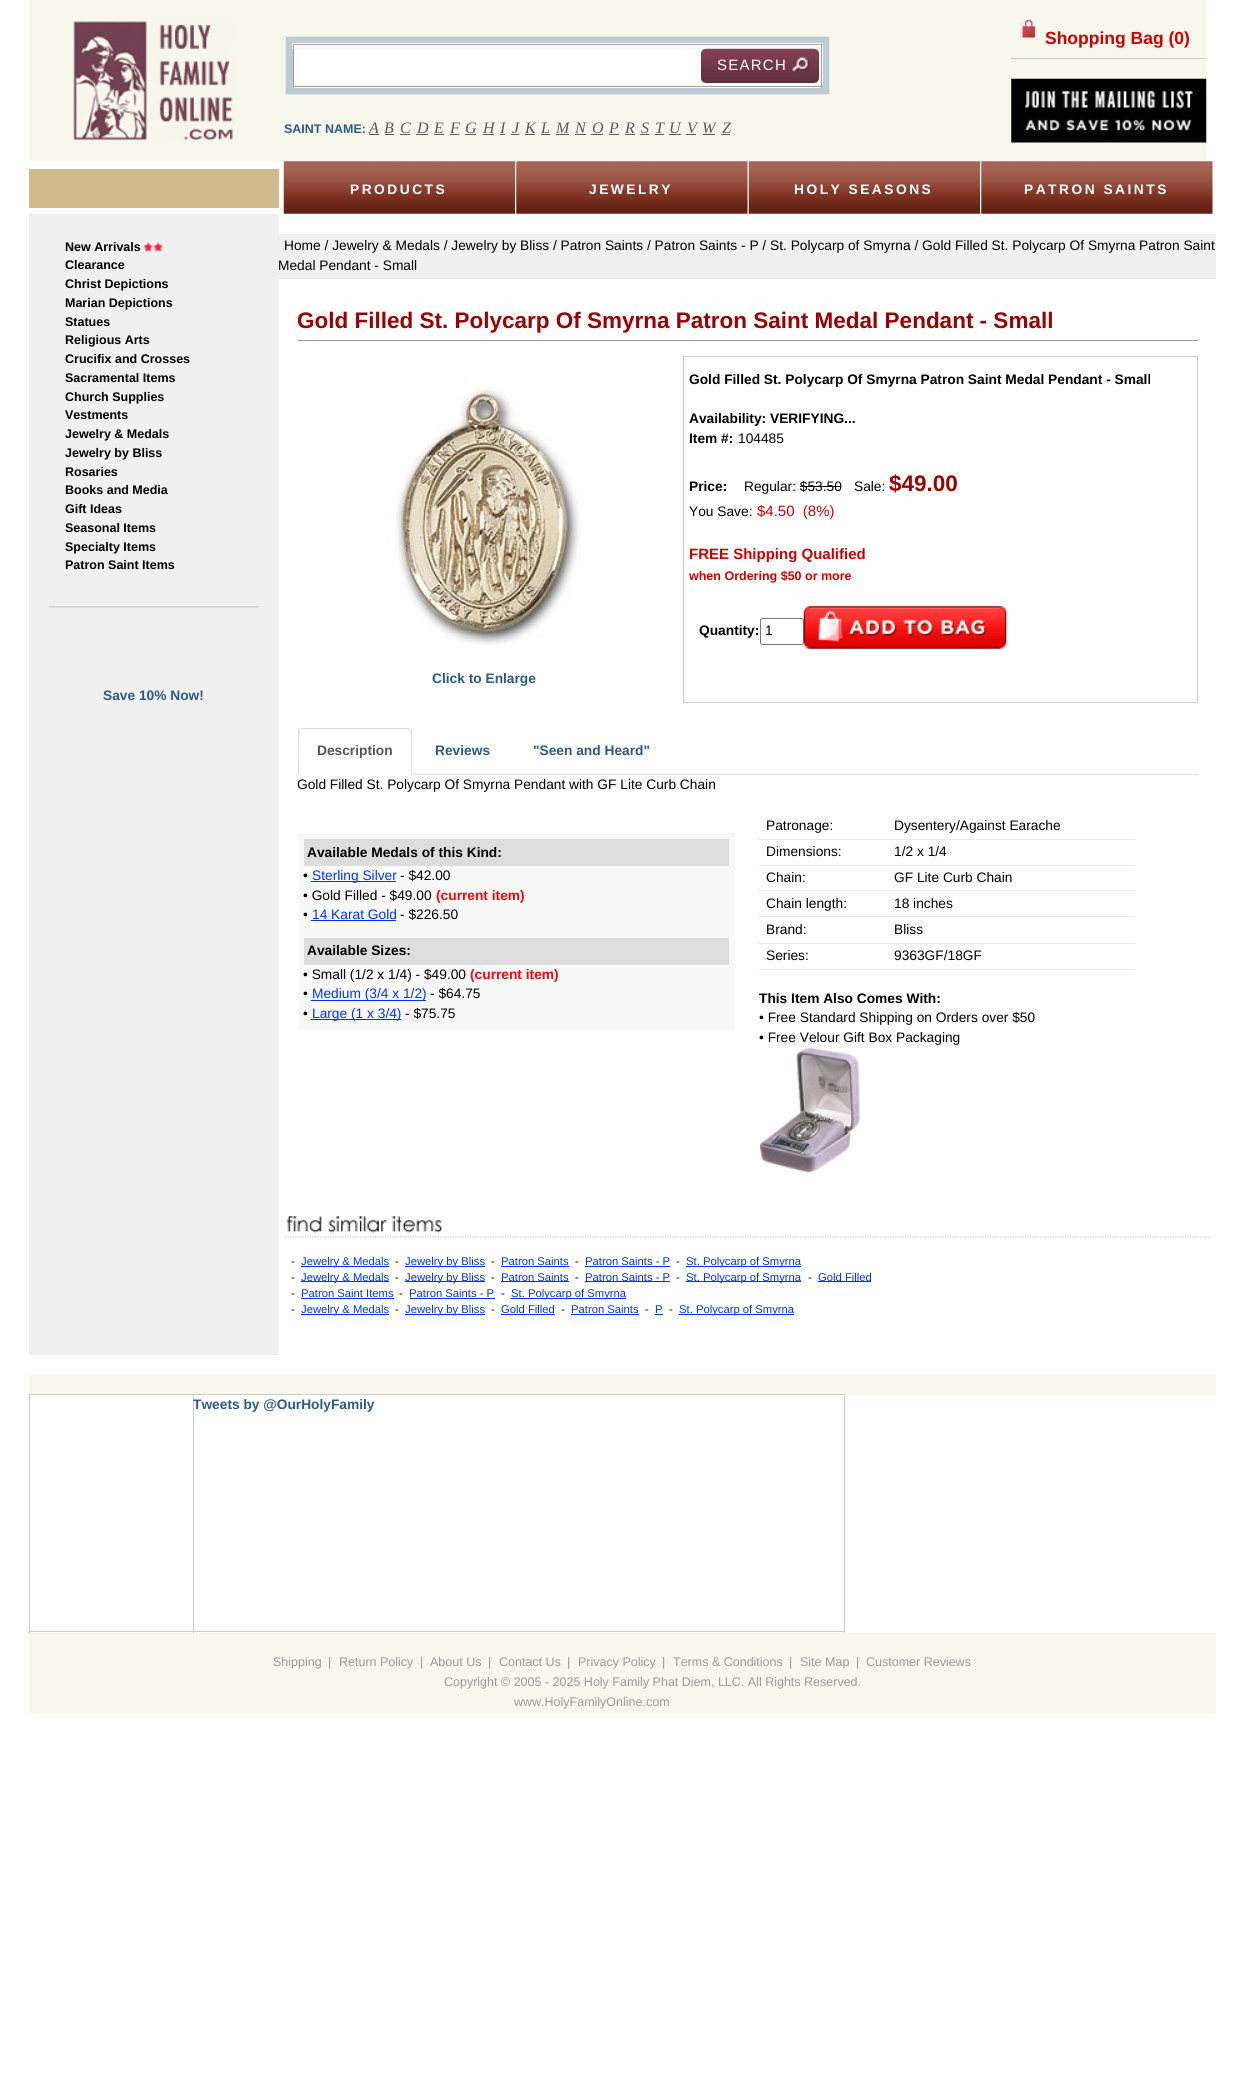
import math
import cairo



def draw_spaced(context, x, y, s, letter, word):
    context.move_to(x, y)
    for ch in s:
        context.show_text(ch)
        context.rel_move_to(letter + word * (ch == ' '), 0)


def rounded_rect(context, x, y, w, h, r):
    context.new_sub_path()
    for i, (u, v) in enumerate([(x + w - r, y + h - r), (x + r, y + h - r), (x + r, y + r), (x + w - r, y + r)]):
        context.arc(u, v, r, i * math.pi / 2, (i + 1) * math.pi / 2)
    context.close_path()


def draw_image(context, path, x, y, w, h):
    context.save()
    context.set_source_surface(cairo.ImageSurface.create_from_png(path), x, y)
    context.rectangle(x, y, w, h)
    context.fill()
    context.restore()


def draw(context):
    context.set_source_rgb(1, 1, 1)
    context.paint()
    context.set_source_rgb(247 / 255, 247 / 255, 235 / 255)
    context.rectangle(29, 0, 1177, 161)
    context.fill()
    draw_image(context, "images/1.png", 73, 20, 160, 121)
    draw_image(context, "images/2.png", 1020, 18, 20, 20)
    context.set_source_rgb(204 / 255, 204 / 255, 204 / 255)
    context.rectangle(1011, 58, 195, 1)
    context.fill()
    draw_image(context, "images/3.png", 1011, 78, 196, 65)
    context.set_source_rgb(189 / 255, 204 / 255, 210 / 255)
    context.rectangle(285.5, 36.5, 544, 58)
    context.fill_preserve()
    context.set_source_rgb(232 / 255, 232 / 255, 232 / 255)
    context.set_line_width(1)
    context.stroke()
    context.set_source_rgb(1, 1, 1)
    context.rectangle(294, 49, 529, 39)
    context.fill()
    context.set_source_rgb(250 / 255, 248 / 255, 249 / 255)
    context.rectangle(292, 43, 531, 6)
    context.fill()
    context.set_source_rgb(171 / 255, 170 / 255, 170 / 255)
    context.rectangle(293, 44, 530, 1)
    context.fill()
    context.set_source_rgb(169 / 255, 156 / 255, 133 / 255)
    context.rectangle(821, 44, 1, 44)
    context.fill()
    context.rectangle(293, 86, 530, 1)
    context.fill()
    context.rectangle(293, 44, 1, 44)
    context.fill()
    context.set_source_rgb(92 / 255, 44 / 255, 60 / 255)
    rounded_rect(context, 701, 49, 118, 34, 5)
    context.fill()
    draw_image(context, "images/4.png", 701, 48, 118, 34)
    draw_image(context, "images/5.png", 792, 57, 17, 16)
    context.set_source_rgb(88 / 255, 90 / 255, 93 / 255)
    context.rectangle(369, 134, 10, 1)
    context.fill()
    context.rectangle(385, 134, 9, 1)
    context.fill()
    context.rectangle(400, 134, 10, 1)
    context.fill()
    context.rectangle(416, 134, 12, 1)
    context.fill()
    context.rectangle(434, 134, 10, 1)
    context.fill()
    context.rectangle(450, 134, 9, 1)
    context.fill()
    context.rectangle(465, 134, 11, 1)
    context.fill()
    context.rectangle(483, 134, 11, 1)
    context.fill()
    context.rectangle(500, 134, 5, 1)
    context.fill()
    context.rectangle(511, 134, 8, 1)
    context.fill()
    context.rectangle(525, 134, 10, 1)
    context.fill()
    context.rectangle(541, 134, 9, 1)
    context.fill()
    context.rectangle(556, 134, 13, 1)
    context.fill()
    context.rectangle(575, 134, 11, 1)
    context.fill()
    context.rectangle(591, 134, 12, 1)
    context.fill()
    context.rectangle(609, 134, 10, 1)
    context.fill()
    context.rectangle(625, 134, 10, 1)
    context.fill()
    context.rectangle(640, 134, 9, 1)
    context.fill()
    context.rectangle(655, 134, 9, 1)
    context.fill()
    context.rectangle(669, 134, 12, 1)
    context.fill()
    context.rectangle(686, 134, 10, 1)
    context.fill()
    context.rectangle(703, 134, 12, 1)
    context.fill()
    context.rectangle(721, 134, 9, 1)
    context.fill()
    context.set_source_rgb(208 / 255, 185 / 255, 138 / 255)
    context.rectangle(29, 169, 250, 39)
    context.fill()
    draw_image(context, "images/6.png", 283, 161, 232, 53)
    draw_image(context, "images/7.png", 516, 161, 232, 53)
    draw_image(context, "images/8.png", 748, 161, 232, 53)
    draw_image(context, "images/9.png", 981, 161, 232, 53)
    context.set_source_rgb(240 / 255, 240 / 255, 240 / 255)
    context.rectangle(29, 214, 250, 1141)
    context.fill()
    draw_image(context, "images/10.png", 143, 242, 20, 10)
    draw_image(context, "images/11.png", 48, 606, 211, 2)
    context.rectangle(279, 234, 937, 45)
    context.fill()
    context.set_source_rgb(153 / 255, 153 / 255, 153 / 255)
    context.rectangle(298, 340, 900, 1)
    context.fill()
    context.rectangle(683.5, 356.5, 514, 346)
    context.set_source_rgb(204 / 255, 204 / 255, 204 / 255)
    context.stroke()
    context.set_source_rgb(0, 0, 0)
    context.rectangle(800, 486, 41, 1)
    context.fill()
    rounded_rect(context, 760.5, 618.5, 43, 26, 2)
    context.set_source_rgb(118 / 255, 118 / 255, 118 / 255)
    context.stroke()
    draw_image(context, "images/12.png", 803, 606, 204, 43)
    draw_image(context, "images/13.png", 386, 377, 196, 268)
    context.set_source_rgb(221 / 255, 221 / 255, 221 / 255)
    context.rectangle(413, 774, 785, 1)
    context.fill()
    context.new_path()
    context.move_to(302, 728)
    context.line_to(299, 729)
    context.line_to(300, 730)
    context.line_to(302, 729)
    context.line_to(408, 729)
    context.line_to(410, 730)
    context.line_to(411, 729)
    context.line_to(408, 728)
    context.close_path()
    context.fill()
    context.new_path()
    context.move_to(412, 774)
    context.line_to(412, 732)
    context.curve_to(412, 731, 412, 730, 411, 729)
    context.line_to(410, 730)
    context.curve_to(412, 732, 411, 768, 411, 774)
    context.close_path()
    context.fill()
    context.new_path()
    context.move_to(299, 729)
    context.curve_to(298, 730, 298, 731, 298, 732)
    context.line_to(298, 774)
    context.line_to(299, 774)
    context.curve_to(299, 768, 298, 732, 300, 730)
    context.close_path()
    context.fill()
    context.set_source_rgb(248 / 255, 248 / 255, 248 / 255)
    context.rectangle(298, 833, 437, 197)
    context.fill()
    context.set_source_rgb(221 / 255, 221 / 255, 221 / 255)
    context.rectangle(304, 839, 425, 27)
    context.fill()
    context.set_source_rgb(0, 51 / 255, 1)
    context.rectangle(311, 881, 85, 1)
    context.fill()
    context.rectangle(311, 920, 85, 1)
    context.fill()
    context.set_source_rgb(221 / 255, 221 / 255, 221 / 255)
    context.rectangle(304, 938, 425, 27)
    context.fill()
    context.set_source_rgb(0, 51 / 255, 1)
    context.rectangle(311, 1000, 115, 1)
    context.fill()
    context.rectangle(311, 1019, 90, 1)
    context.fill()
    context.set_source_rgb(235 / 255, 235 / 255, 235 / 255)
    context.rectangle(759, 839, 376, 1)
    context.fill()
    context.rectangle(759, 865, 376, 1)
    context.fill()
    context.rectangle(759, 890, 376, 1)
    context.fill()
    context.rectangle(759, 916, 376, 1)
    context.fill()
    context.rectangle(759, 943, 376, 1)
    context.fill()
    context.rectangle(759, 969, 376, 1)
    context.fill()
    draw_image(context, "images/14.png", 760, 1047, 100, 126)
    context.new_path()
    context.move_to(285, 1237)
    context.line_to(1210, 1237)
    context.set_source_rgb(204 / 255, 204 / 255, 204 / 255)
    context.set_line_width(1.2)
    context.set_dash([1.25, 1.25])
    context.stroke()
    draw_image(context, "images/15.png", 286, 1216, 156, 17)
    context.set_source_rgb(0, 51 / 255, 1)
    context.rectangle(301, 1266, 88, 1)
    context.fill()
    context.rectangle(405, 1266, 80, 1)
    context.fill()
    context.rectangle(501, 1266, 68, 1)
    context.fill()
    context.rectangle(585, 1266, 85, 1)
    context.fill()
    context.rectangle(686, 1266, 115, 1)
    context.fill()
    context.rectangle(301, 1281, 88, 1)
    context.fill()
    context.rectangle(405, 1281, 80, 1)
    context.fill()
    context.rectangle(501, 1281, 68, 1)
    context.fill()
    context.rectangle(585, 1281, 85, 1)
    context.fill()
    context.rectangle(686, 1281, 115, 1)
    context.fill()
    context.rectangle(818, 1281, 53, 1)
    context.fill()
    context.rectangle(301, 1298, 93, 1)
    context.fill()
    context.rectangle(410, 1298, 85, 1)
    context.fill()
    context.rectangle(511, 1298, 115, 1)
    context.fill()
    context.rectangle(301, 1314, 88, 1)
    context.fill()
    context.rectangle(405, 1314, 80, 1)
    context.fill()
    context.rectangle(501, 1314, 54, 1)
    context.fill()
    context.rectangle(571, 1314, 68, 1)
    context.fill()
    context.rectangle(655, 1314, 8, 1)
    context.fill()
    context.rectangle(679, 1314, 115, 1)
    context.fill()
    context.set_source_rgb(247 / 255, 247 / 255, 235 / 255)
    context.rectangle(29, 1375, 1187, 338)
    context.fill()
    context.set_source_rgb(1, 1, 1)
    context.rectangle(30, 1395, 163, 238)
    context.fill()
    context.set_source_rgb(204 / 255, 204 / 255, 204 / 255)
    context.rectangle(193, 1394, 652, 1)
    context.fill()
    context.set_source_rgb(1, 1, 1)
    context.rectangle(194, 1395, 650, 238)
    context.fill()
    context.set_source_rgb(204 / 255, 204 / 255, 204 / 255)
    context.rectangle(844, 1394, 1, 239)
    context.fill()
    context.rectangle(193, 1631, 652, 1)
    context.fill()
    context.rectangle(193, 1394, 1, 239)
    context.fill()
    context.rectangle(29, 1394, 165, 1)
    context.fill()
    context.rectangle(29, 1631, 165, 1)
    context.fill()
    context.rectangle(29, 1394, 1, 239)
    context.fill()
    context.set_source_rgb(1, 1, 1)
    context.rectangle(845, 1395, 371, 238)
    context.fill()
    context.select_font_face("Liberation Sans", cairo.FontSlant.NORMAL, cairo.FontWeight.BOLD)
    context.set_font_size(17.5)
    context.set_source_rgb(204 / 255, 0, 0)
    context.move_to(1045, 44)
    context.show_text("Shopping Bag (0)")
    context.select_font_face("Liberation Sans")
    context.set_font_size(15)
    context.set_source_rgb(1, 1, 1)
    draw_spaced(context, 717, 70, "SEARCH", 1.25, 0)
    context.select_font_face("Liberation Sans", cairo.FontSlant.NORMAL, cairo.FontWeight.BOLD)
    context.set_font_size(12.5)
    context.set_source_rgb(44 / 255, 89 / 255, 135 / 255)
    context.move_to(284, 133)
    context.show_text("SAINT NAME:")
    context.select_font_face("Liberation Serif", cairo.FontSlant.ITALIC)
    context.set_font_size(16)
    context.set_source_rgb(88 / 255, 90 / 255, 93 / 255)
    context.move_to(369, 133)
    context.show_text("A")
    context.move_to(384, 133)
    context.show_text("B")
    context.move_to(400, 133)
    context.show_text("C")
    context.move_to(417, 133)
    context.show_text("D")
    context.move_to(434, 133)
    context.show_text("E")
    context.move_to(450, 133)
    context.show_text("F")
    context.move_to(465, 133)
    context.show_text("G")
    context.move_to(483, 133)
    context.show_text("H")
    context.move_to(500, 133)
    context.show_text("I")
    context.move_to(512, 133)
    context.show_text("J")
    context.move_to(525, 133)
    context.show_text("K")
    context.move_to(541, 133)
    context.show_text("L")
    context.move_to(556, 133)
    context.show_text("M")
    context.move_to(575, 133)
    context.show_text("N")
    context.move_to(592, 133)
    context.show_text("O")
    context.move_to(609, 133)
    context.show_text("P")
    context.move_to(625, 133)
    context.show_text("R")
    context.move_to(641, 133)
    context.show_text("S")
    context.move_to(655, 133)
    context.show_text("T")
    context.move_to(669, 133)
    context.show_text("U")
    context.move_to(687, 133)
    context.show_text("V")
    context.move_to(702, 133)
    context.show_text("W")
    context.move_to(722, 133)
    context.show_text("Z")
    context.select_font_face("Liberation Sans", cairo.FontSlant.NORMAL, cairo.FontWeight.BOLD)
    context.set_font_size(13.75)
    context.set_source_rgb(1, 1, 1)
    draw_spaced(context, 350, 194, "PRODUCTS", 2.5, 0)
    draw_spaced(context, 589, 194, "JEWELRY", 2.5, 0)
    draw_spaced(context, 794, 194, "HOLY SEASONS", 2.5, 0)
    draw_spaced(context, 1024, 194, "PATRON SAINTS", 2.5, 0)
    context.set_font_size(12.5)
    context.set_source_rgb(0, 0, 0)
    context.move_to(65, 251)
    context.show_text("New Arrivals")
    context.move_to(65, 269)
    context.show_text("Clearance")
    context.move_to(65, 288)
    context.show_text("Christ Depictions")
    context.move_to(65, 307)
    context.show_text("Marian Depictions")
    context.move_to(65, 326)
    context.show_text("Statues")
    context.move_to(65, 344)
    context.show_text("Religious Arts")
    context.move_to(65, 363)
    context.show_text("Crucifix and Crosses")
    context.move_to(65, 382)
    context.show_text("Sacramental Items")
    context.move_to(65, 401)
    context.show_text("Church Supplies")
    context.move_to(65, 419)
    context.show_text("Vestments")
    context.move_to(65, 438)
    context.show_text("Jewelry & Medals")
    context.move_to(65, 457)
    context.show_text("Jewelry by Bliss")
    context.move_to(65, 476)
    context.show_text("Rosaries")
    context.move_to(65, 494)
    context.show_text("Books and Media")
    context.move_to(65, 513)
    context.show_text("Gift Ideas")
    context.move_to(65, 532)
    context.show_text("Seasonal Items")
    context.move_to(65, 551)
    context.show_text("Specialty Items")
    context.move_to(65, 569)
    context.show_text("Patron Saint Items")
    context.set_font_size(13.75)
    context.set_source_rgb(44 / 255, 89 / 255, 135 / 255)
    context.move_to(103, 700)
    context.show_text("Save 10% Now!")
    context.select_font_face("Liberation Sans")
    context.set_source_rgb(0, 0, 0)
    context.move_to(284, 250)
    context.show_text("Home / Jewelry & Medals / Jewelry by Bliss / Patron Saints / Patron Saints - P / St. Polycarp of Smyrna / Gold Filled St. Polycarp Of Smyrna Patron Saint")
    context.move_to(278, 270)
    context.show_text("Medal Pendant - Small")
    context.select_font_face("Liberation Sans", cairo.FontSlant.NORMAL, cairo.FontWeight.BOLD)
    context.set_font_size(22.5)
    context.set_source_rgb(153 / 255, 0, 0)
    context.move_to(297, 328)
    context.show_text("Gold Filled St. Polycarp Of Smyrna Patron Saint Medal Pendant - Small")
    context.set_font_size(13.75)
    context.set_source_rgb(0, 0, 0)
    context.move_to(689, 384)
    context.show_text("Gold Filled St. Polycarp Of Smyrna Patron Saint Medal Pendant - Small")
    context.move_to(689, 423)
    context.show_text("Availability: VERIFYING...")
    context.move_to(689, 443)
    context.show_text("Item #:")
    context.select_font_face("Liberation Sans")
    context.move_to(738, 443)
    context.show_text("104485")
    context.select_font_face("Liberation Sans", cairo.FontSlant.NORMAL, cairo.FontWeight.BOLD)
    context.move_to(689, 491)
    context.show_text("Price:")
    context.select_font_face("Liberation Sans")
    context.move_to(744, 491)
    context.show_text("Regular: $53.50")
    context.move_to(854, 491)
    context.show_text("Sale:")
    context.select_font_face("Liberation Sans", cairo.FontSlant.NORMAL, cairo.FontWeight.BOLD)
    context.set_font_size(22.5)
    context.set_source_rgb(153 / 255, 0, 0)
    context.move_to(889, 491)
    context.show_text("$49.00")
    context.select_font_face("Liberation Sans")
    context.set_font_size(13.75)
    context.set_source_rgb(0, 0, 0)
    context.move_to(689, 516)
    context.show_text("You Save:")
    context.set_font_size(15)
    context.set_source_rgb(204 / 255, 0, 0)
    context.move_to(757, 516)
    context.show_text("$4.50  (8%)")
    context.select_font_face("Liberation Sans", cairo.FontSlant.NORMAL, cairo.FontWeight.BOLD)
    context.move_to(689, 559)
    context.show_text("FREE Shipping Qualified")
    context.set_font_size(12.5)
    context.move_to(689, 580)
    context.show_text("when Ordering $50 or more")
    context.set_font_size(13.75)
    context.set_source_rgb(0, 0, 0)
    context.move_to(699, 635)
    context.show_text("Quantity:")
    context.select_font_face("Liberation Sans")
    context.move_to(765, 635)
    context.show_text("1")
    context.select_font_face("Liberation Sans", cairo.FontSlant.NORMAL, cairo.FontWeight.BOLD)
    context.set_source_rgb(44 / 255, 89 / 255, 135 / 255)
    context.move_to(432, 683)
    context.show_text("Click to Enlarge")
    context.set_source_rgb(85 / 255, 85 / 255, 85 / 255)
    context.move_to(317, 755)
    context.show_text("Description")
    context.set_source_rgb(44 / 255, 89 / 255, 135 / 255)
    context.move_to(435, 755)
    context.show_text("Reviews")
    context.move_to(533, 755)
    context.show_text("\"Seen and Heard\"")
    context.select_font_face("Liberation Sans")
    context.set_source_rgb(0, 0, 0)
    context.move_to(297, 789)
    context.show_text("Gold Filled St. Polycarp Of Smyrna Pendant with GF Lite Curb Chain")
    context.select_font_face("Liberation Sans", cairo.FontSlant.NORMAL, cairo.FontWeight.BOLD)
    context.move_to(307, 857)
    context.show_text("Available Medals of this Kind:")
    context.select_font_face("Liberation Sans")
    context.move_to(303, 880)
    context.show_text("•")
    context.set_source_rgb(0, 51 / 255, 1)
    context.move_to(312, 880)
    context.show_text("Sterling Silver")
    context.set_source_rgb(0, 0, 0)
    context.move_to(400, 880)
    context.show_text("- $42.00")
    context.move_to(303, 900)
    context.show_text("• Gold Filled - $49.00")
    context.select_font_face("Liberation Sans", cairo.FontSlant.NORMAL, cairo.FontWeight.BOLD)
    context.set_source_rgb(1, 0, 0)
    context.move_to(436, 900)
    context.show_text("(current item)")
    context.select_font_face("Liberation Sans")
    context.set_source_rgb(0, 0, 0)
    context.move_to(303, 919)
    context.show_text("•")
    context.set_source_rgb(0, 51 / 255, 1)
    context.move_to(312, 919)
    context.show_text("14 Karat Gold")
    context.set_source_rgb(0, 0, 0)
    context.move_to(400, 919)
    context.show_text("- $226.50")
    context.select_font_face("Liberation Sans", cairo.FontSlant.NORMAL, cairo.FontWeight.BOLD)
    context.move_to(307, 955)
    context.show_text("Available Sizes:")
    context.select_font_face("Liberation Sans")
    context.move_to(303, 979)
    context.show_text("• Small (1/2 x 1/4) - $49.00")
    context.select_font_face("Liberation Sans", cairo.FontSlant.NORMAL, cairo.FontWeight.BOLD)
    context.set_source_rgb(1, 0, 0)
    context.move_to(470, 979)
    context.show_text("(current item)")
    context.select_font_face("Liberation Sans")
    context.set_source_rgb(0, 0, 0)
    context.move_to(303, 998)
    context.show_text("•")
    context.set_source_rgb(0, 51 / 255, 1)
    context.move_to(312, 998)
    context.show_text("Medium (3/4 x 1/2)")
    context.set_source_rgb(0, 0, 0)
    context.move_to(430, 998)
    context.show_text("- $64.75")
    context.move_to(303, 1018)
    context.show_text("•")
    context.set_source_rgb(0, 51 / 255, 1)
    context.move_to(312, 1018)
    context.show_text("Large (1 x 3/4)")
    context.set_source_rgb(0, 0, 0)
    context.move_to(405, 1018)
    context.show_text("- $75.75")
    context.move_to(766, 830)
    context.show_text("Patronage:")
    context.move_to(894, 830)
    context.show_text("Dysentery/Against Earache")
    context.move_to(766, 856)
    context.show_text("Dimensions:")
    context.move_to(894, 856)
    context.show_text("1/2 x 1/4")
    context.move_to(766, 882)
    context.show_text("Chain:")
    context.move_to(894, 882)
    context.show_text("GF Lite Curb Chain")
    context.move_to(766, 908)
    context.show_text("Chain length:")
    context.move_to(894, 908)
    context.show_text("18 inches")
    context.move_to(766, 934)
    context.show_text("Brand:")
    context.move_to(894, 934)
    context.show_text("Bliss")
    context.move_to(766, 960)
    context.show_text("Series:")
    context.move_to(894, 960)
    context.show_text("9363GF/18GF")
    context.select_font_face("Liberation Sans", cairo.FontSlant.NORMAL, cairo.FontWeight.BOLD)
    context.move_to(759, 1003)
    context.show_text("This Item Also Comes With:")
    context.select_font_face("Liberation Sans")
    context.move_to(759, 1022)
    context.show_text("• Free Standard Shipping on Orders over $50")
    context.move_to(759, 1042)
    context.show_text("• Free Velour Gift Box Packaging")
    context.set_font_size(11.25)
    context.move_to(291, 1265)
    context.show_text("-")
    context.set_source_rgb(0, 51 / 255, 1)
    context.move_to(301, 1265)
    context.show_text("Jewelry & Medals")
    context.set_source_rgb(0, 0, 0)
    context.move_to(395, 1265)
    context.show_text("-")
    context.set_source_rgb(0, 51 / 255, 1)
    context.move_to(405, 1265)
    context.show_text("Jewelry by Bliss")
    context.set_source_rgb(0, 0, 0)
    context.move_to(491, 1265)
    context.show_text("-")
    context.set_source_rgb(0, 51 / 255, 1)
    context.move_to(501, 1265)
    context.show_text("Patron Saints")
    context.set_source_rgb(0, 0, 0)
    context.move_to(575, 1265)
    context.show_text("-")
    context.set_source_rgb(0, 51 / 255, 1)
    context.move_to(585, 1265)
    context.show_text("Patron Saints - P")
    context.set_source_rgb(0, 0, 0)
    context.move_to(676, 1265)
    context.show_text("-")
    context.set_source_rgb(0, 51 / 255, 1)
    context.move_to(686, 1265)
    context.show_text("St. Polycarp of Smyrna")
    context.set_source_rgb(0, 0, 0)
    context.move_to(291, 1281)
    context.show_text("-")
    context.set_source_rgb(0, 51 / 255, 1)
    context.move_to(301, 1281)
    context.show_text("Jewelry & Medals")
    context.set_source_rgb(0, 0, 0)
    context.move_to(395, 1281)
    context.show_text("-")
    context.set_source_rgb(0, 51 / 255, 1)
    context.move_to(405, 1281)
    context.show_text("Jewelry by Bliss")
    context.set_source_rgb(0, 0, 0)
    context.move_to(491, 1281)
    context.show_text("-")
    context.set_source_rgb(0, 51 / 255, 1)
    context.move_to(501, 1281)
    context.show_text("Patron Saints")
    context.set_source_rgb(0, 0, 0)
    context.move_to(575, 1281)
    context.show_text("-")
    context.set_source_rgb(0, 51 / 255, 1)
    context.move_to(585, 1281)
    context.show_text("Patron Saints - P")
    context.set_source_rgb(0, 0, 0)
    context.move_to(676, 1281)
    context.show_text("-")
    context.set_source_rgb(0, 51 / 255, 1)
    context.move_to(686, 1281)
    context.show_text("St. Polycarp of Smyrna")
    context.set_source_rgb(0, 0, 0)
    context.move_to(808, 1281)
    context.show_text("-")
    context.set_source_rgb(0, 51 / 255, 1)
    context.move_to(818, 1281)
    context.show_text("Gold Filled")
    context.set_source_rgb(0, 0, 0)
    context.move_to(291, 1297)
    context.show_text("-")
    context.set_source_rgb(0, 51 / 255, 1)
    context.move_to(301, 1297)
    context.show_text("Patron Saint Items")
    context.set_source_rgb(0, 0, 0)
    context.move_to(399, 1297)
    context.show_text("-")
    context.set_source_rgb(0, 51 / 255, 1)
    context.move_to(409, 1297)
    context.show_text("Patron Saints - P")
    context.set_source_rgb(0, 0, 0)
    context.move_to(501, 1297)
    context.show_text("-")
    context.set_source_rgb(0, 51 / 255, 1)
    context.move_to(511, 1297)
    context.show_text("St. Polycarp of Smyrna")
    context.set_source_rgb(0, 0, 0)
    context.move_to(291, 1313)
    context.show_text("-")
    context.set_source_rgb(0, 51 / 255, 1)
    context.move_to(301, 1313)
    context.show_text("Jewelry & Medals")
    context.set_source_rgb(0, 0, 0)
    context.move_to(395, 1313)
    context.show_text("-")
    context.set_source_rgb(0, 51 / 255, 1)
    context.move_to(405, 1313)
    context.show_text("Jewelry by Bliss")
    context.set_source_rgb(0, 0, 0)
    context.move_to(491, 1313)
    context.show_text("-")
    context.set_source_rgb(0, 51 / 255, 1)
    context.move_to(501, 1313)
    context.show_text("Gold Filled")
    context.set_source_rgb(0, 0, 0)
    context.move_to(561, 1313)
    context.show_text("-")
    context.set_source_rgb(0, 51 / 255, 1)
    context.move_to(571, 1313)
    context.show_text("Patron Saints")
    context.set_source_rgb(0, 0, 0)
    context.move_to(645, 1313)
    context.show_text("-")
    context.set_source_rgb(0, 51 / 255, 1)
    context.move_to(655, 1313)
    context.show_text("P")
    context.set_source_rgb(0, 0, 0)
    context.move_to(669, 1313)
    context.show_text("-")
    context.set_source_rgb(0, 51 / 255, 1)
    context.move_to(679, 1313)
    context.show_text("St. Polycarp of Smyrna")
    context.select_font_face("Liberation Sans", cairo.FontSlant.NORMAL, cairo.FontWeight.BOLD)
    context.set_font_size(13.75)
    context.set_source_rgb(44 / 255, 89 / 255, 135 / 255)
    context.move_to(193, 1409)
    context.show_text("Tweets by @OurHolyFamily")
    context.select_font_face("Liberation Sans")
    context.set_font_size(12.5)
    context.set_source_rgb(153 / 255, 153 / 255, 153 / 255)
    context.move_to(273, 1666)
    context.show_text("Shipping")
    context.move_to(328, 1666)
    context.show_text("|")
    context.move_to(339, 1666)
    context.show_text("Return Policy")
    context.move_to(420, 1666)
    context.show_text("|")
    context.move_to(430, 1666)
    context.show_text("About Us")
    context.move_to(488, 1666)
    context.show_text("|")
    context.move_to(499, 1666)
    context.show_text("Contact Us")
    context.move_to(567, 1666)
    context.show_text("|")
    context.move_to(578, 1666)
    context.show_text("Privacy Policy")
    context.move_to(662, 1666)
    context.show_text("|")
    context.move_to(673, 1666)
    context.show_text("Terms & Conditions")
    context.move_to(789, 1666)
    context.show_text("|")
    context.move_to(800, 1666)
    context.show_text("Site Map")
    context.move_to(856, 1666)
    context.show_text("|")
    context.move_to(866, 1666)
    context.show_text("Customer Reviews")
    context.move_to(444, 1686)
    context.show_text("Copyright © 2005 - 2025 Holy Family Phat Diem, LLC. All Rights Reserved.")
    context.move_to(514, 1706)
    context.show_text("www.HolyFamilyOnline.com")


surface = cairo.ImageSurface(cairo.Format.RGB24, 1256, 2081)
context = cairo.Context(surface)
options = cairo.FontOptions()
options.set_hint_metrics(cairo.HintMetrics.OFF)
options.set_hint_style(cairo.HintStyle.NONE)
context.set_font_options(options)
context.set_miter_limit(4)
draw(context)
surface.write_to_png("out.png")
